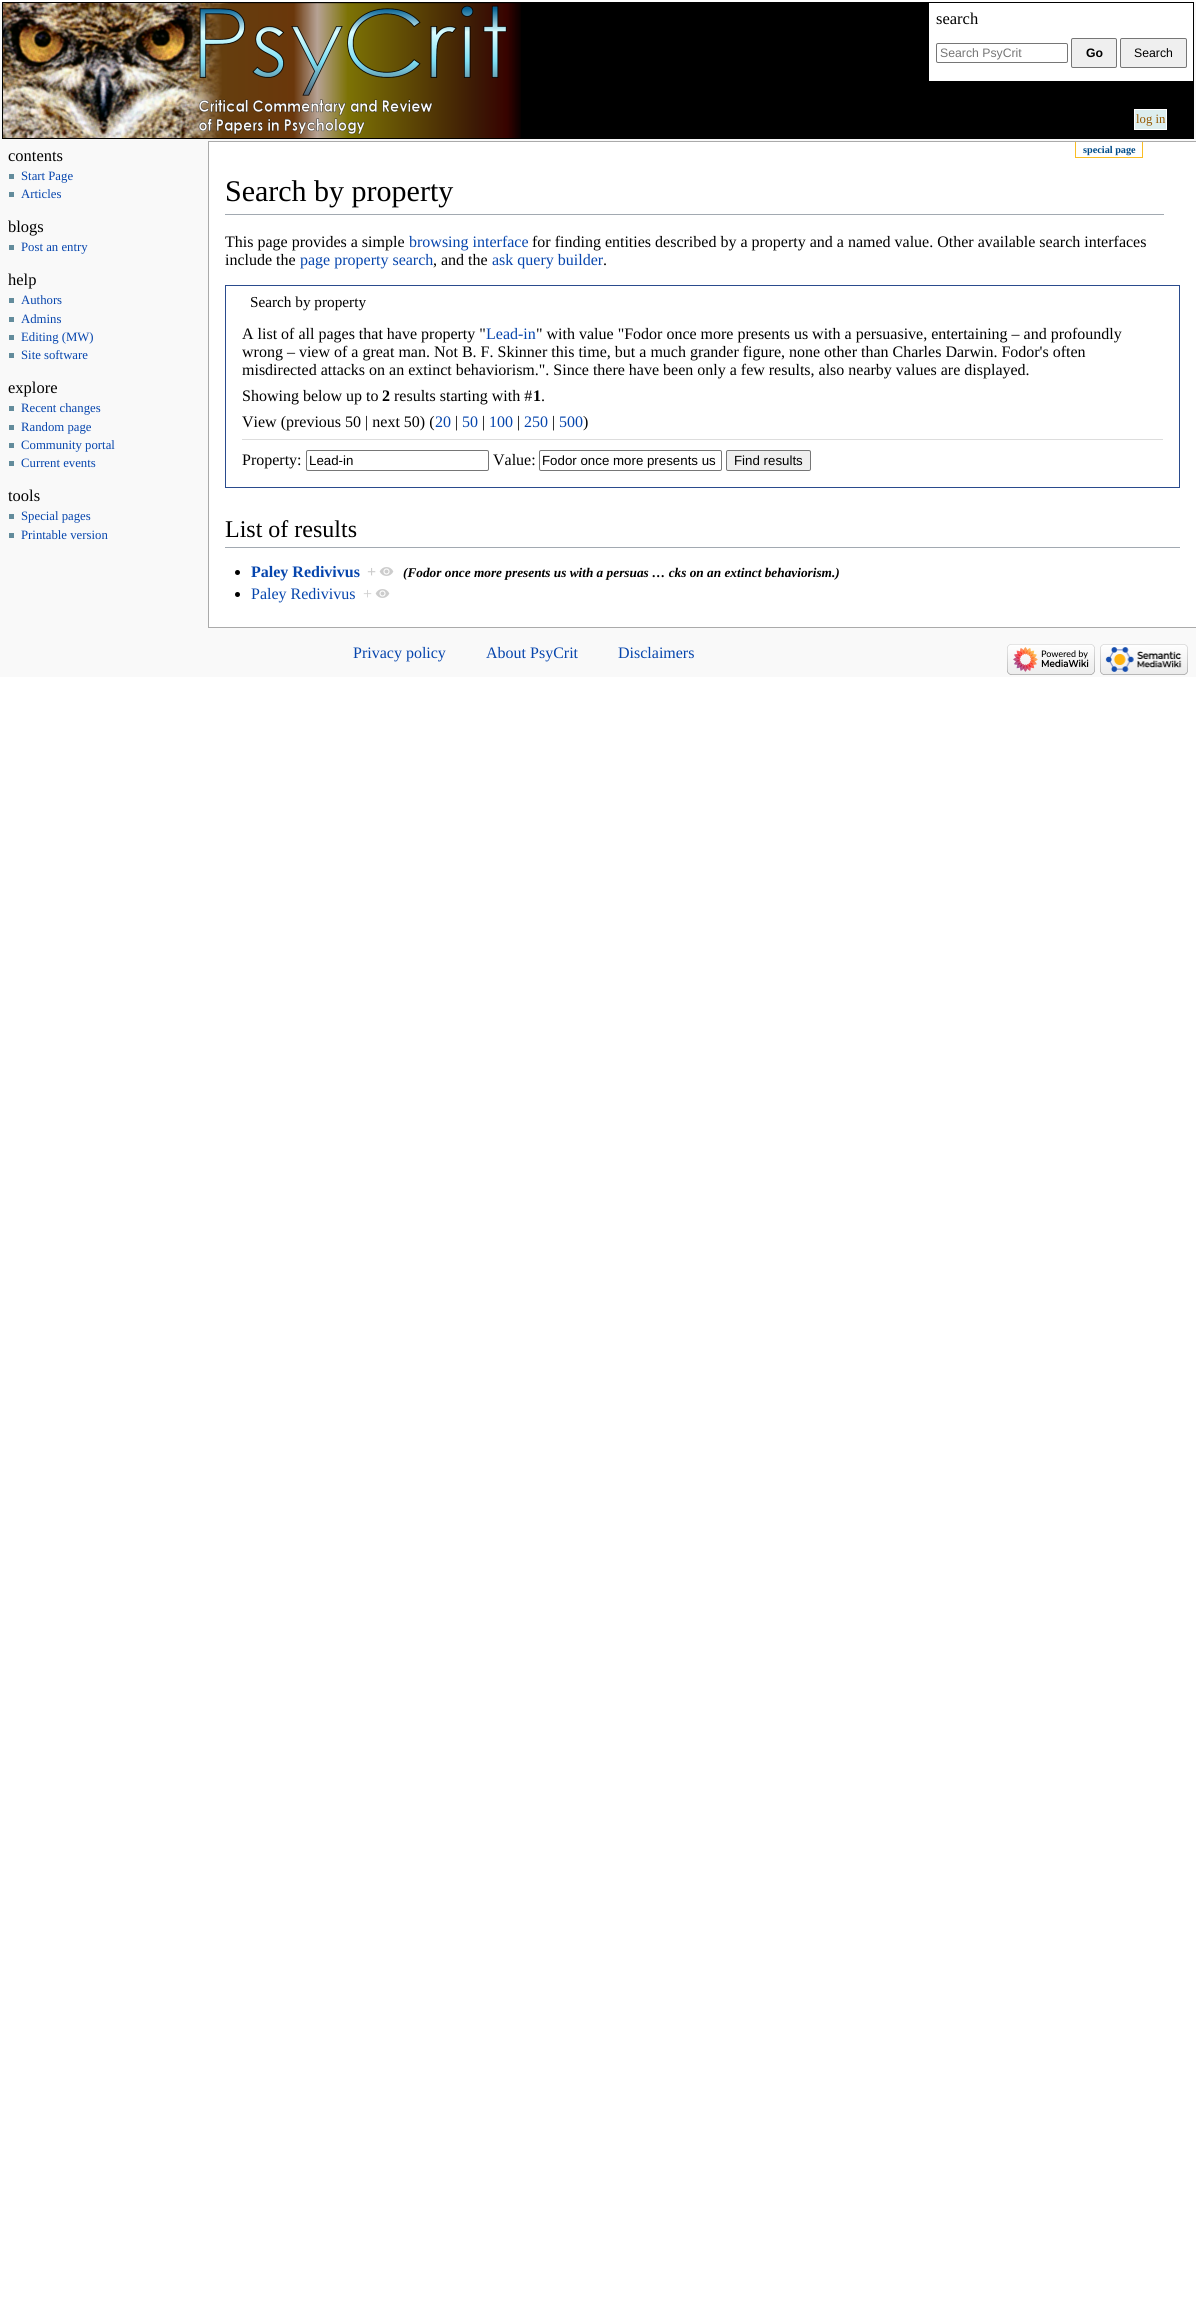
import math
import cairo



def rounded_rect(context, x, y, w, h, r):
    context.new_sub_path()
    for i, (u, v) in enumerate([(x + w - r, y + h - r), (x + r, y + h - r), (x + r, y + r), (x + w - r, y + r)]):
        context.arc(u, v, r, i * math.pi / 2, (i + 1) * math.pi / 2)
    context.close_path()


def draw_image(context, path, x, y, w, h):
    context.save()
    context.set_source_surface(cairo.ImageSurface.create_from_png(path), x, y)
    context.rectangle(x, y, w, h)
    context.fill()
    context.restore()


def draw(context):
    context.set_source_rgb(1, 1, 1)
    context.paint()
    context.set_source_rgb(249 / 255, 249 / 255, 249 / 255)
    context.rectangle(0, 2, 1196, 675)
    context.fill()
    context.set_source_rgb(0, 0, 0)
    context.rectangle(2, 2, 1192, 137)
    context.fill()
    draw_image(context, "images/1.png", 3, 3, 518, 135)
    context.set_source_rgb(1, 1, 1)
    context.rectangle(929, 3, 264, 78)
    context.fill()
    rounded_rect(context, 936.5, 43.5, 131, 19, 1.5)
    context.set_source_rgb(118 / 255, 118 / 255, 118 / 255)
    context.set_line_width(1)
    context.stroke()
    context.set_source_rgb(239 / 255, 239 / 255, 239 / 255)
    rounded_rect(context, 1071.5, 38.5, 45, 29, 1.5)
    context.fill_preserve()
    context.set_source_rgb(118 / 255, 118 / 255, 118 / 255)
    context.stroke()
    context.set_source_rgb(239 / 255, 239 / 255, 239 / 255)
    rounded_rect(context, 1120.5, 38.5, 66, 29, 1.5)
    context.fill_preserve()
    context.set_source_rgb(118 / 255, 118 / 255, 118 / 255)
    context.stroke()
    context.set_source_rgb(221 / 255, 238 / 255, 238 / 255)
    context.rectangle(1134.5, 109.5, 32, 20)
    context.fill_preserve()
    context.set_source_rgb(1, 1, 1)
    context.stroke()
    context.set_source_rgb(99 / 255, 140 / 255, 156 / 255)
    context.rectangle(9, 174, 5, 5)
    context.fill()
    context.rectangle(9, 192, 5, 5)
    context.fill()
    context.rectangle(9, 245, 5, 5)
    context.fill()
    context.rectangle(9, 298, 5, 5)
    context.fill()
    context.rectangle(9, 317, 5, 5)
    context.fill()
    context.rectangle(9, 335, 5, 5)
    context.fill()
    context.rectangle(9, 353, 5, 5)
    context.fill()
    context.rectangle(9, 406, 5, 5)
    context.fill()
    context.rectangle(9, 425, 5, 5)
    context.fill()
    context.rectangle(9, 443, 5, 5)
    context.fill()
    context.rectangle(9, 461, 5, 5)
    context.fill()
    context.rectangle(9, 514, 5, 5)
    context.fill()
    context.rectangle(9, 533, 5, 5)
    context.fill()
    context.set_source_rgb(1, 1, 1)
    context.rectangle(209, 142, 987, 485)
    context.fill()
    context.set_source_rgb(170 / 255, 170 / 255, 170 / 255)
    context.rectangle(208, 141, 988, 1)
    context.fill()
    context.rectangle(208, 627, 988, 1)
    context.fill()
    context.rectangle(208, 141, 1, 487)
    context.fill()
    context.set_source_rgb(250 / 255, 189 / 255, 35 / 255)
    context.rectangle(1142, 142, 1, 16)
    context.fill()
    context.rectangle(1075, 157, 68, 1)
    context.fill()
    context.rectangle(1075, 142, 1, 16)
    context.fill()
    context.set_source_rgb(162 / 255, 169 / 255, 177 / 255)
    context.rectangle(225, 214, 939, 1)
    context.fill()
    context.rectangle(225.5, 285.5, 954, 202)
    context.set_source_rgb(42 / 255, 75 / 255, 141 / 255)
    context.stroke()
    context.set_source_rgb(221 / 255, 221 / 255, 221 / 255)
    context.rectangle(242, 439, 921, 1)
    context.fill()
    rounded_rect(context, 306.5, 450.5, 182, 20, 1.5)
    context.set_source_rgb(118 / 255, 118 / 255, 118 / 255)
    context.stroke()
    rounded_rect(context, 539.5, 450.5, 182, 20, 1.5)
    context.stroke()
    context.set_source_rgb(239 / 255, 239 / 255, 239 / 255)
    rounded_rect(context, 726.5, 450.5, 84, 20, 1.5)
    context.fill_preserve()
    context.set_source_rgb(118 / 255, 118 / 255, 118 / 255)
    context.stroke()
    context.set_source_rgb(162 / 255, 169 / 255, 177 / 255)
    context.rectangle(225, 547, 955, 1)
    context.fill()
    context.set_source_rgb(0, 0, 0)
    context.arc(237.5, 572.5, 2.5, 0, 2 * math.pi)
    context.fill()
    draw_image(context, "images/2.png", 379, 567, 15, 9)
    context.arc(237.5, 594.5, 2.5, 0, 2 * math.pi)
    context.fill()
    draw_image(context, "images/2.png", 375, 589, 15, 9)
    draw_image(context, "images/3.png", 1007, 644, 88, 31)
    draw_image(context, "images/4.png", 1100, 644, 88, 31)
    context.select_font_face("Liberation Serif")
    context.set_font_size(16.5)
    context.move_to(936, 24)
    context.show_text("search")
    context.select_font_face("Liberation Sans")
    context.set_font_size(12.25)
    context.set_source_rgb(117 / 255, 117 / 255, 117 / 255)
    context.move_to(940, 57)
    context.show_text("Search PsyCrit")
    context.select_font_face("Liberation Sans", cairo.FontSlant.NORMAL, cairo.FontWeight.BOLD)
    context.set_source_rgb(0, 0, 0)
    context.move_to(1086, 57)
    context.show_text("Go")
    context.select_font_face("Liberation Sans")
    context.move_to(1134, 57)
    context.show_text("Search")
    context.select_font_face("Liberation Serif")
    context.set_font_size(12.75)
    context.set_source_rgb(150 / 255, 88 / 255, 0)
    context.move_to(1136, 123)
    context.show_text("log in")
    context.set_font_size(16.5)
    context.set_source_rgb(0, 0, 0)
    context.move_to(8, 161)
    context.show_text("contents")
    context.set_font_size(12.75)
    context.set_source_rgb(6 / 255, 69 / 255, 173 / 255)
    context.move_to(21, 180)
    context.show_text("Start Page")
    context.move_to(21, 198)
    context.show_text("Articles")
    context.set_font_size(16.5)
    context.set_source_rgb(0, 0, 0)
    context.move_to(8, 232)
    context.show_text("blogs")
    context.set_font_size(12.75)
    context.set_source_rgb(6 / 255, 69 / 255, 173 / 255)
    context.move_to(21, 251)
    context.show_text("Post an entry")
    context.set_font_size(16.5)
    context.set_source_rgb(0, 0, 0)
    context.move_to(8, 285)
    context.show_text("help")
    context.set_font_size(12.75)
    context.set_source_rgb(6 / 255, 69 / 255, 173 / 255)
    context.move_to(21, 304)
    context.show_text("Authors")
    context.move_to(21, 323)
    context.show_text("Admins")
    context.move_to(21, 341)
    context.show_text("Editing (MW)")
    context.move_to(21, 359)
    context.show_text("Site software")
    context.set_font_size(16.5)
    context.set_source_rgb(0, 0, 0)
    context.move_to(8, 393)
    context.show_text("explore")
    context.set_font_size(12.75)
    context.set_source_rgb(6 / 255, 69 / 255, 173 / 255)
    context.move_to(21, 412)
    context.show_text("Recent changes")
    context.move_to(21, 431)
    context.show_text("Random page")
    context.move_to(21, 449)
    context.show_text("Community portal")
    context.move_to(21, 467)
    context.show_text("Current events")
    context.set_font_size(16.5)
    context.set_source_rgb(0, 0, 0)
    context.move_to(8, 501)
    context.show_text("tools")
    context.set_font_size(12.75)
    context.set_source_rgb(6 / 255, 69 / 255, 173 / 255)
    context.move_to(21, 520)
    context.show_text("Special pages")
    context.move_to(21, 539)
    context.show_text("Printable version")
    context.select_font_face("Liberation Serif", cairo.FontSlant.NORMAL, cairo.FontWeight.BOLD)
    context.set_font_size(10.25)
    context.set_source_rgb(0, 75 / 255, 136 / 255)
    context.move_to(1083, 153)
    context.show_text("special page")
    context.select_font_face("Liberation Serif")
    context.set_font_size(30)
    context.set_source_rgb(0, 0, 0)
    context.move_to(225, 201)
    context.show_text("Search by property")
    context.set_font_size(16)
    context.move_to(225, 247)
    context.show_text("This page provides a simple")
    context.set_source_rgb(6 / 255, 69 / 255, 173 / 255)
    context.move_to(409, 247)
    context.show_text("browsing interface")
    context.set_source_rgb(0, 0, 0)
    context.move_to(532, 247)
    context.show_text("for finding entities described by a property and a named value. Other available search interfaces")
    context.move_to(225, 265)
    context.show_text("include the")
    context.set_source_rgb(6 / 255, 69 / 255, 173 / 255)
    context.move_to(300, 265)
    context.show_text("page property search")
    context.set_source_rgb(0, 0, 0)
    context.move_to(433, 265)
    context.show_text(", and the")
    context.set_source_rgb(6 / 255, 69 / 255, 173 / 255)
    context.move_to(492, 265)
    context.show_text("ask query builder")
    context.set_source_rgb(0, 0, 0)
    context.move_to(603, 265)
    context.show_text(".")
    context.set_font_size(15.25)
    context.move_to(250, 307)
    context.show_text("Search by property")
    context.set_font_size(16)
    context.move_to(242, 339)
    context.show_text("A list of all pages that have property \"")
    context.set_source_rgb(6 / 255, 69 / 255, 173 / 255)
    context.move_to(486, 339)
    context.show_text("Lead-in")
    context.set_source_rgb(0, 0, 0)
    context.move_to(536, 339)
    context.show_text("\" with value \"Fodor once more presents us with a persuasive, entertaining – and profoundly")
    context.move_to(242, 357)
    context.show_text("wrong – view of a great man. Not B. F. Skinner this time, but a much grander figure, none other than Charles Darwin. Fodor's often")
    context.move_to(242, 375)
    context.show_text("misdirected attacks on an extinct behaviorism.\". Since there have been only a few results, also nearby values are displayed.")
    context.move_to(242, 401)
    context.show_text("Showing below up to")
    context.select_font_face("Liberation Serif", cairo.FontSlant.NORMAL, cairo.FontWeight.BOLD)
    context.move_to(382, 401)
    context.show_text("2")
    context.select_font_face("Liberation Serif")
    context.move_to(394, 401)
    context.show_text("results starting with #")
    context.select_font_face("Liberation Serif", cairo.FontSlant.NORMAL, cairo.FontWeight.BOLD)
    context.move_to(533, 401)
    context.show_text("1")
    context.select_font_face("Liberation Serif")
    context.move_to(541, 401)
    context.show_text(".")
    context.move_to(242, 427)
    context.show_text("View (previous 50 | next 50) (")
    context.set_source_rgb(6 / 255, 69 / 255, 173 / 255)
    context.move_to(435, 427)
    context.show_text("20")
    context.set_source_rgb(0, 0, 0)
    context.move_to(455, 427)
    context.show_text("|")
    context.set_source_rgb(6 / 255, 69 / 255, 173 / 255)
    context.move_to(462, 427)
    context.show_text("50")
    context.set_source_rgb(0, 0, 0)
    context.move_to(482, 427)
    context.show_text("|")
    context.set_source_rgb(6 / 255, 69 / 255, 173 / 255)
    context.move_to(489, 427)
    context.show_text("100")
    context.set_source_rgb(0, 0, 0)
    context.move_to(517, 427)
    context.show_text("|")
    context.set_source_rgb(6 / 255, 69 / 255, 173 / 255)
    context.move_to(524, 427)
    context.show_text("250")
    context.set_source_rgb(0, 0, 0)
    context.move_to(552, 427)
    context.show_text("|")
    context.set_source_rgb(6 / 255, 69 / 255, 173 / 255)
    context.move_to(559, 427)
    context.show_text("500")
    context.set_source_rgb(0, 0, 0)
    context.move_to(583, 427)
    context.show_text(")")
    context.move_to(242, 465)
    context.show_text("Property:")
    context.select_font_face("Liberation Sans")
    context.set_font_size(13.3)
    context.move_to(309, 465)
    context.show_text("Lead-in")
    context.select_font_face("Liberation Serif")
    context.set_font_size(16)
    context.move_to(493, 465)
    context.show_text("Value:")
    context.select_font_face("Liberation Sans")
    context.set_font_size(13.3)
    context.move_to(542, 465)
    context.show_text("Fodor once more presents us")
    context.move_to(734, 465)
    context.show_text("Find results")
    context.select_font_face("Liberation Serif")
    context.set_font_size(24)
    context.move_to(225, 537)
    context.show_text("List of results")
    context.select_font_face("Liberation Serif", cairo.FontSlant.NORMAL, cairo.FontWeight.BOLD)
    context.set_font_size(16)
    context.set_source_rgb(6 / 255, 69 / 255, 173 / 255)
    context.move_to(251, 577)
    context.show_text("Paley Redivivus")
    context.set_source_rgb(204 / 255, 204 / 255, 204 / 255)
    context.move_to(367, 577)
    context.show_text("+")
    context.select_font_face("Liberation Serif", cairo.FontSlant.ITALIC, cairo.FontWeight.BOLD)
    context.set_font_size(13.3)
    context.set_source_rgb(0, 0, 0)
    context.move_to(403, 577)
    context.show_text("(Fodor once more presents us with a persuas … cks on an extinct behaviorism.)")
    context.select_font_face("Liberation Serif")
    context.set_font_size(16)
    context.set_source_rgb(6 / 255, 69 / 255, 173 / 255)
    context.move_to(251, 599)
    context.show_text("Paley Redivivus")
    context.set_source_rgb(204 / 255, 204 / 255, 204 / 255)
    context.move_to(363, 599)
    context.show_text("+")
    context.set_source_rgb(6 / 255, 69 / 255, 173 / 255)
    context.move_to(353, 658)
    context.show_text("Privacy policy")
    context.move_to(486, 658)
    context.show_text("About PsyCrit")
    context.move_to(618, 658)
    context.show_text("Disclaimers")


surface = cairo.ImageSurface(cairo.Format.RGB24, 1196, 2301)
context = cairo.Context(surface)
options = cairo.FontOptions()
options.set_hint_metrics(cairo.HintMetrics.OFF)
options.set_hint_style(cairo.HintStyle.NONE)
context.set_font_options(options)
context.set_miter_limit(4)
draw(context)
surface.write_to_png("out.png")
